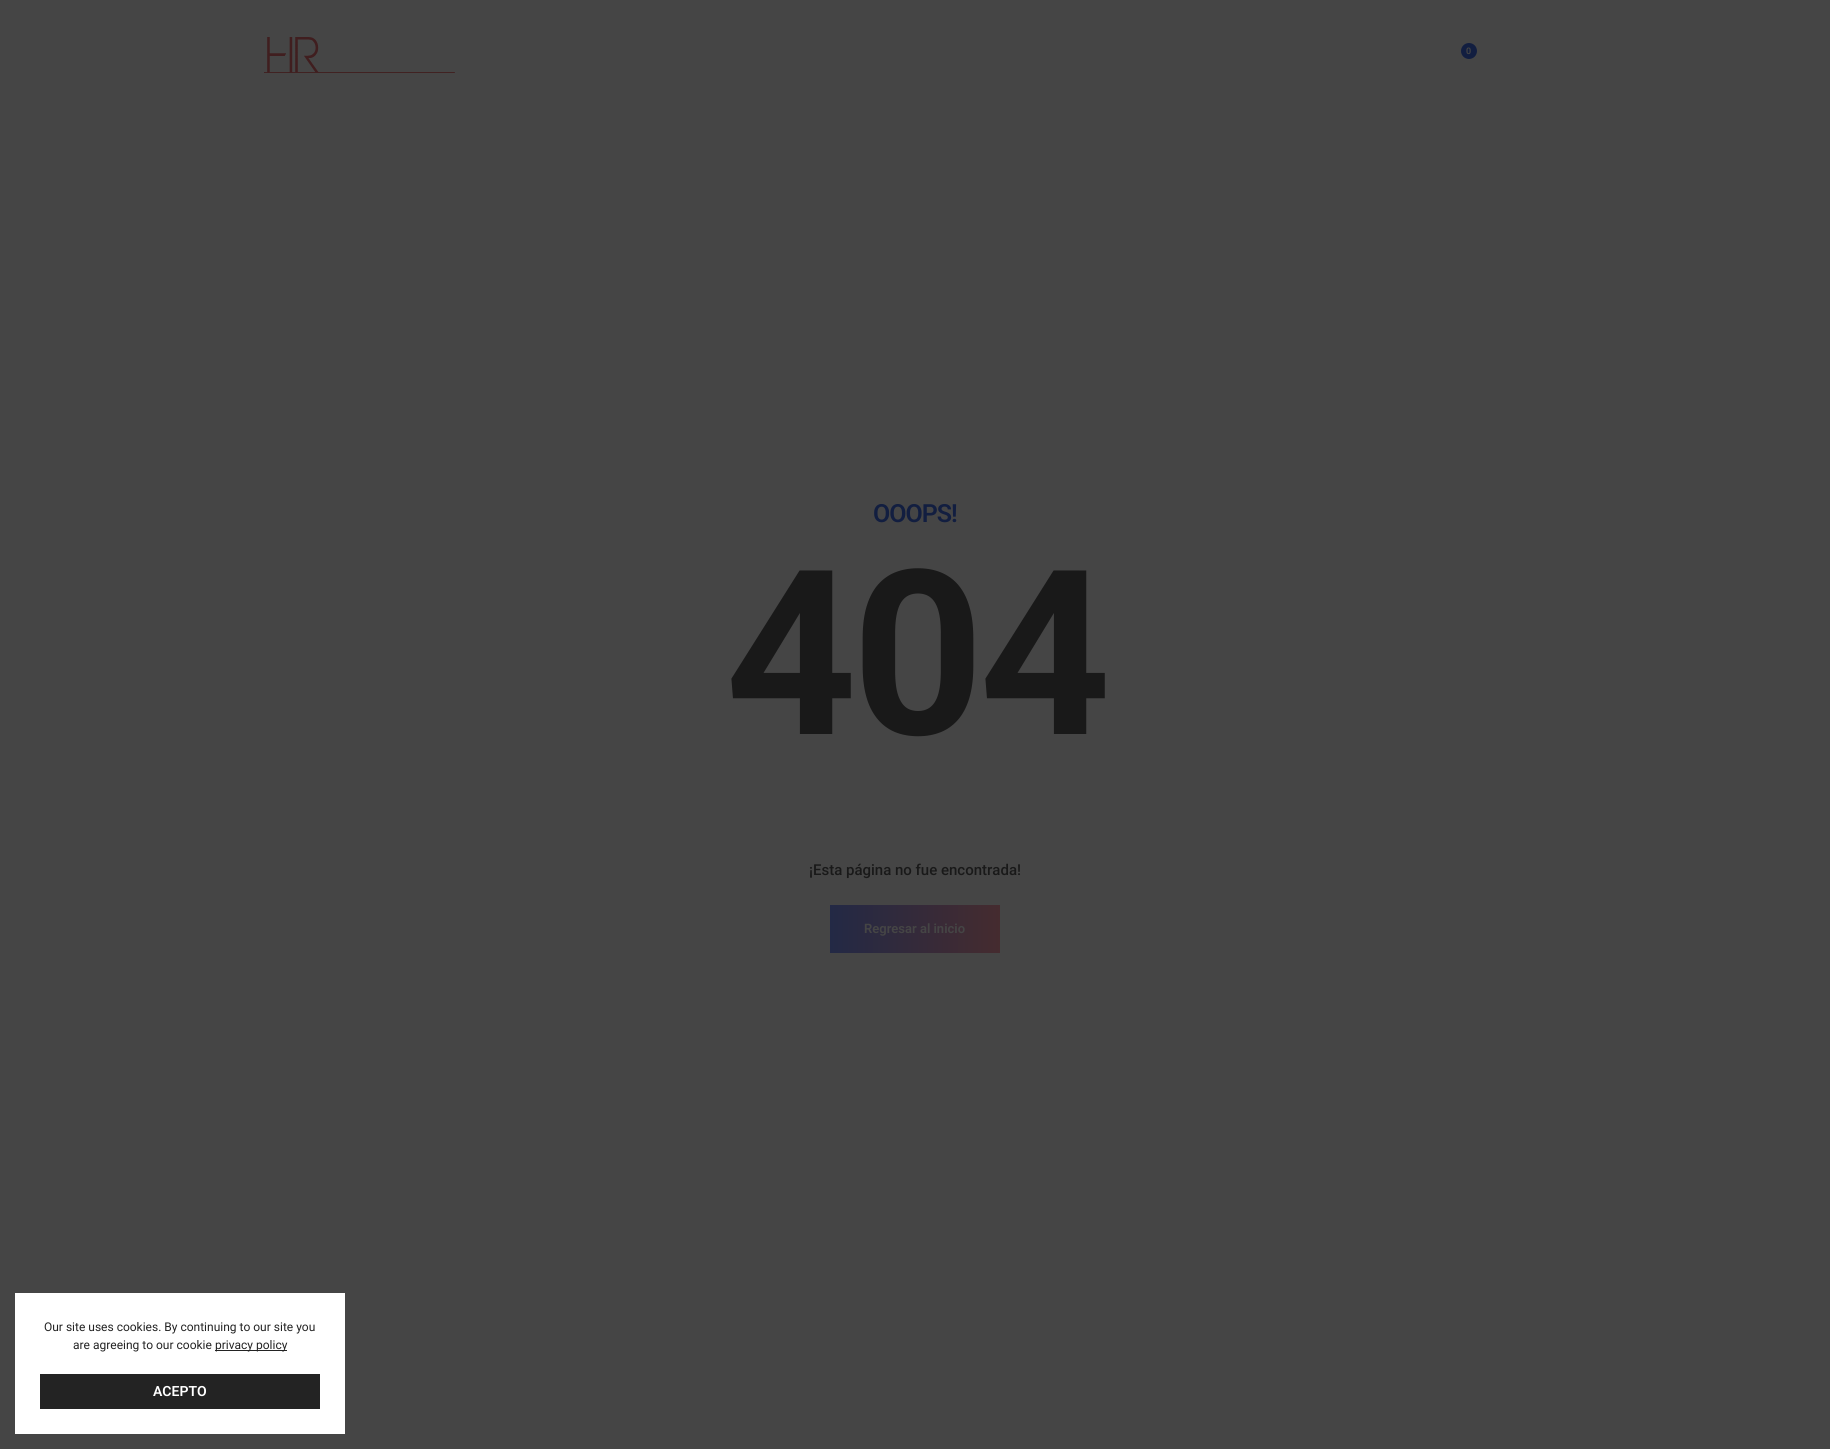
import math
import cairo



def draw_spaced(context, x, y, s, letter, word):
    context.move_to(x, y)
    for ch in s:
        context.show_text(ch)
        context.rel_move_to(letter + word * (ch == ' '), 0)


def draw_image(context, path, x, y, w, h):
    context.save()
    context.set_source_surface(cairo.ImageSurface.create_from_png(path), x, y)
    context.rectangle(x, y, w, h)
    context.fill()
    context.restore()


def draw(context):
    context.set_source_rgb(69 / 255, 69 / 255, 69 / 255)
    context.paint()
    draw_image(context, "images/1.png", 264, 37, 191, 36)
    context.set_source_rgb(18 / 255, 30 / 255, 64 / 255)
    context.arc(1469, 51, 8, 0, 2 * math.pi)
    context.fill()
    gradient = cairo.LinearGradient(830, 929, 1170, 929)
    gradient.add_color_stop_rgba(0, 35 / 255, 41 / 255, 69 / 255, 1)
    gradient.add_color_stop_rgba(0.5, 69 / 255, 43 / 255, 47 / 255, 1)
    gradient.add_color_stop_rgba(1, 35 / 255, 41 / 255, 69 / 255, 1)
    context.set_source(gradient)
    context.rectangle(830, 905, 170, 48)
    context.fill()
    context.set_source_rgb(1, 1, 1)
    context.rectangle(15, 1293, 330, 141)
    context.fill()
    context.set_source_rgb(35 / 255, 35 / 255, 35 / 255)
    context.rectangle(215, 1350, 72, 1)
    context.fill()
    context.rectangle(40, 1374, 280, 35)
    context.fill()
    context.select_font_face("Roboto SemiBold")
    context.set_font_size(9)
    context.set_source_rgb(69 / 255, 69 / 255, 69 / 255)
    context.move_to(1466, 54)
    context.show_text("0")
    context.set_font_size(25)
    context.set_source_rgb(18 / 255, 30 / 255, 64 / 255)
    draw_spaced(context, 873, 522, "OOOPS!", -1, 0)
    context.select_font_face("Roboto", cairo.FontSlant.NORMAL, cairo.FontWeight.BOLD)
    context.set_font_size(230)
    context.set_source_rgb(25 / 255, 25 / 255, 25 / 255)
    draw_spaced(context, 725, 734, "404", -5, 0)
    context.select_font_face("Roboto Medium")
    context.set_font_size(15)
    context.move_to(809, 875)
    context.show_text("¡Esta página no fue encontrada!")
    context.select_font_face("Roboto SemiBold")
    context.set_font_size(13)
    context.set_source_rgb(69 / 255, 69 / 255, 69 / 255)
    context.move_to(864, 933)
    context.show_text("Regresar al inicio")
    context.select_font_face("Roboto")
    context.set_font_size(12)
    context.set_source_rgb(35 / 255, 35 / 255, 35 / 255)
    context.move_to(44, 1331)
    context.show_text("Our site uses cookies. By continuing to our site you")
    context.move_to(73, 1349)
    context.show_text("are agreeing to our cookie")
    context.move_to(215, 1349)
    context.show_text("privacy policy")
    context.select_font_face("Roboto SemiBold")
    context.set_font_size(14)
    context.set_source_rgb(1, 1, 1)
    context.move_to(153, 1396)
    context.show_text("ACEPTO")


surface = cairo.ImageSurface(cairo.Format.RGB24, 1830, 1449)
context = cairo.Context(surface)
options = cairo.FontOptions()
options.set_hint_metrics(cairo.HintMetrics.OFF)
options.set_hint_style(cairo.HintStyle.NONE)
context.set_font_options(options)
context.set_miter_limit(4)
draw(context)
surface.write_to_png("out.png")
